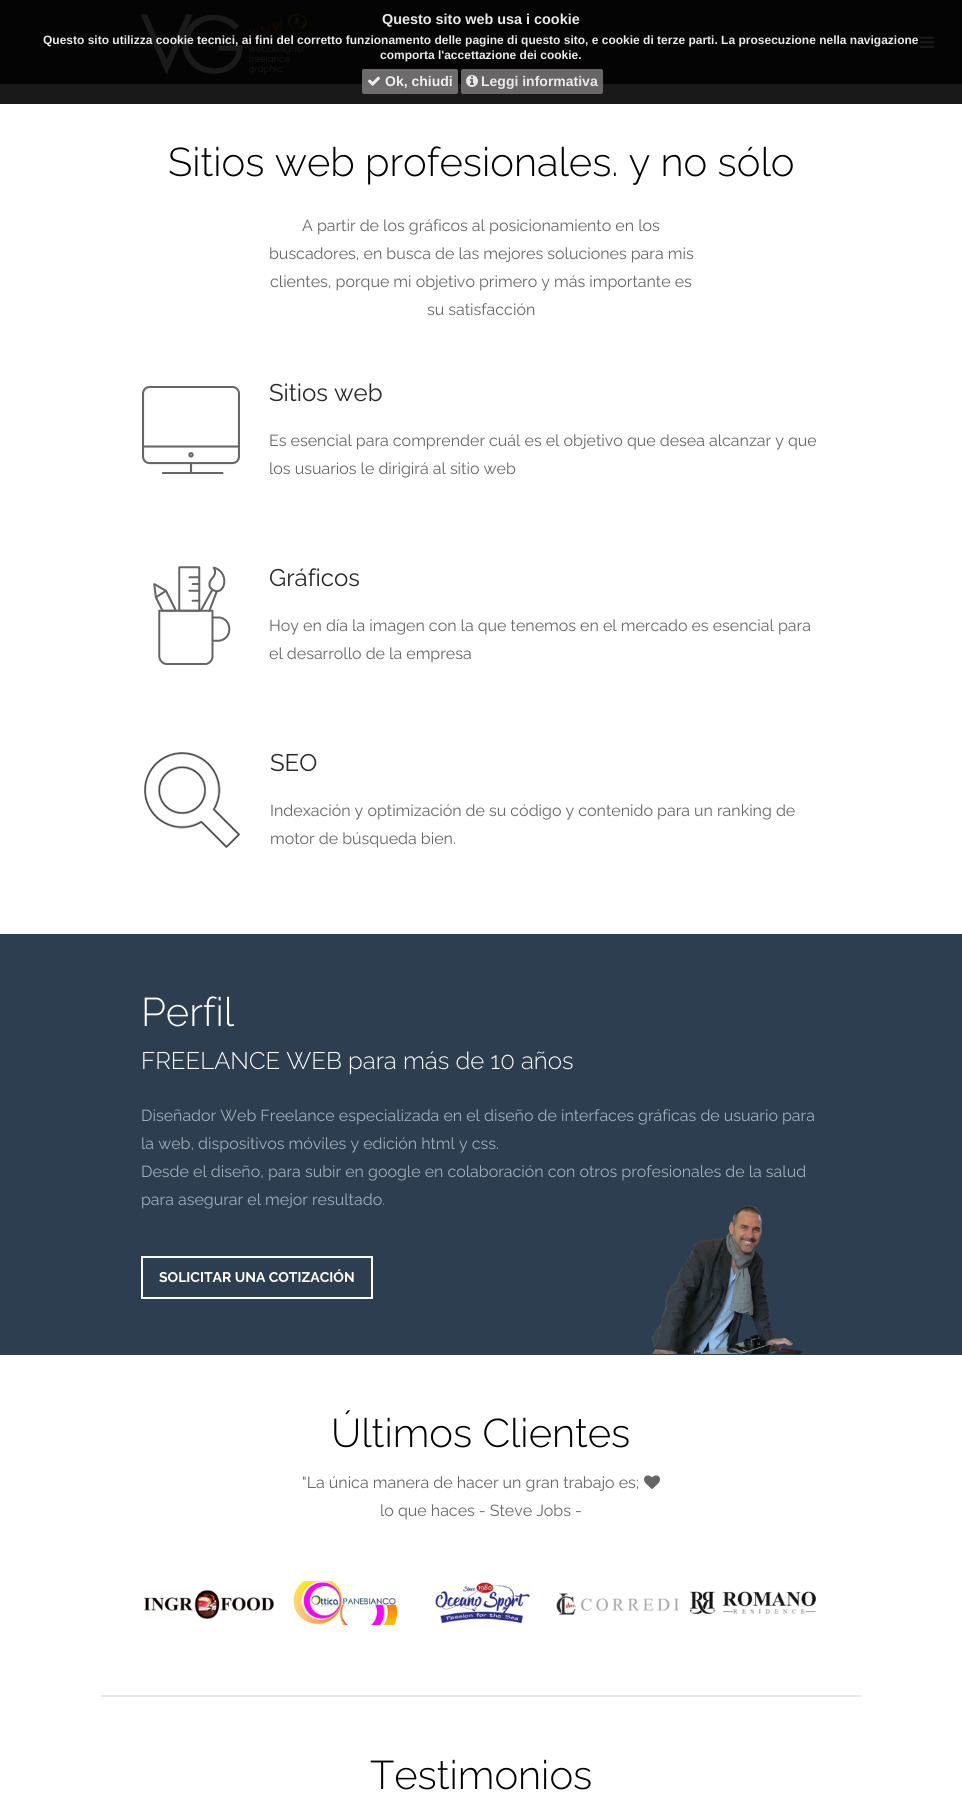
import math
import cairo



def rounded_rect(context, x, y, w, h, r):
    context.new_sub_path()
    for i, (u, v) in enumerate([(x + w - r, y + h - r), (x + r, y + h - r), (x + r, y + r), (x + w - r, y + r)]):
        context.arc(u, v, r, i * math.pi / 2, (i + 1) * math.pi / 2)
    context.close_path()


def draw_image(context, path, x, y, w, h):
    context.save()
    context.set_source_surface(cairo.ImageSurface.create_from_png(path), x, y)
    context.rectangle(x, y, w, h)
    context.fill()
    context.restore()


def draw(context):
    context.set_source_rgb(1, 1, 1)
    context.paint()
    context.set_source_rgb(25 / 255, 25 / 255, 25 / 255)
    context.rectangle(0, 84, 962, 20)
    context.fill()
    context.set_source_rgb(4 / 255, 4 / 255, 4 / 255)
    context.rectangle(0, 0, 962, 84)
    context.fill()
    context.set_source_rgba(120 / 255, 118 / 255, 118 / 255, 0.9)
    rounded_rect(context, 362, 69, 96, 25, 2)
    context.fill()
    draw_image(context, "images/1.png", 368, 76, 12, 10)
    context.set_source_rgba(120 / 255, 118 / 255, 118 / 255, 0.85)
    rounded_rect(context, 461, 69, 142, 25, 2)
    context.fill()
    draw_image(context, "images/2.png", 466, 75, 12, 12)
    draw_image(context, "images/3.png", 141, 14, 166, 60)
    draw_image(context, "images/4.png", 888, 39, 7, 4)
    draw_image(context, "images/5.png", 920, 36, 14, 12)
    draw_image(context, "images/6.png", 142, 386, 98, 88)
    draw_image(context, "images/7.png", 153, 566, 78, 99)
    draw_image(context, "images/8.png", 144, 752, 96, 96)
    context.set_source_rgb(45 / 255, 62 / 255, 80 / 255)
    context.rectangle(0, 934, 962, 421)
    context.fill()
    context.rectangle(142, 1257, 230, 41)
    context.set_source_rgb(1, 1, 1)
    context.stroke()
    draw_image(context, "images/9.png", 651, 1205, 153, 149)
    context.set_source_rgb(231 / 255, 231 / 255, 231 / 255)
    context.rectangle(101, 1695, 760, 2)
    context.fill()
    draw_image(context, "images/10.png", 644, 1475, 16, 14)
    draw_image(context, "images/11.png", 143, 1589, 132, 30)
    draw_image(context, "images/12.png", 292, 1581, 107, 44)
    draw_image(context, "images/13.png", 435, 1582, 95, 42)
    draw_image(context, "images/14.png", 556, 1593, 123, 22)
    draw_image(context, "images/15.png", 689, 1591, 128, 23)
    context.select_font_face("Liberation Sans", cairo.FontSlant.NORMAL, cairo.FontWeight.BOLD)
    context.set_font_size(14.4)
    context.set_source_rgb(234 / 255, 234 / 255, 234 / 255)
    context.move_to(382, 24)
    context.show_text("Questo sito web usa i cookie")
    context.set_font_size(12)
    context.move_to(43, 44)
    context.show_text("Questo sito utilizza cookie tecnici, ai fini del corretto funzionamento delle pagine di questo sito, e cookie di terze parti. La prosecuzione nella navigazione")
    context.move_to(380, 59)
    context.show_text("comporta l'accettazione dei cookie.")
    context.set_font_size(14)
    context.set_source_rgb(240 / 255, 240 / 255, 240 / 255)
    context.move_to(385, 86)
    context.show_text("Ok, chiudi")
    context.set_source_rgb(234 / 255, 234 / 255, 234 / 255)
    context.move_to(481, 86)
    context.show_text("Leggi informativa")
    context.select_font_face("Raleway Light")
    context.set_font_size(40)
    context.set_source_rgb(0, 0, 0)
    context.move_to(168, 176)
    context.show_text("Sitios web profesionales. y no sólo")
    context.select_font_face("Raleway")
    context.set_font_size(16)
    context.set_source_rgb(102 / 255, 102 / 255, 102 / 255)
    context.move_to(302, 231)
    context.show_text("A partir de los gráficos al posicionamiento en los")
    context.move_to(269, 259)
    context.show_text("buscadores, en busca de las mejores soluciones para mis")
    context.move_to(270, 287)
    context.show_text("clientes, porque mi objetivo primero y más importante es")
    context.move_to(427, 315)
    context.show_text("su satisfacción")
    context.set_font_size(24)
    context.set_source_rgb(41 / 255, 41 / 255, 41 / 255)
    context.move_to(269, 401)
    context.show_text("Sitios web")
    context.set_font_size(16)
    context.set_source_rgb(102 / 255, 102 / 255, 102 / 255)
    context.move_to(269, 446)
    context.show_text("Es esencial para comprender cuál es el objetivo que desea alcanzar y que")
    context.move_to(269, 474)
    context.show_text("los usuarios le dirigirá al sitio web")
    context.set_font_size(24)
    context.set_source_rgb(41 / 255, 41 / 255, 41 / 255)
    context.move_to(269, 586)
    context.show_text("Gráficos")
    context.set_font_size(16)
    context.set_source_rgb(102 / 255, 102 / 255, 102 / 255)
    context.move_to(269, 631)
    context.show_text("Hoy en día la imagen con la que tenemos en el mercado es esencial para")
    context.move_to(269, 659)
    context.show_text("el desarrollo de la empresa")
    context.set_font_size(24)
    context.set_source_rgb(41 / 255, 41 / 255, 41 / 255)
    context.move_to(270, 771)
    context.show_text("SEO")
    context.set_font_size(16)
    context.set_source_rgb(102 / 255, 102 / 255, 102 / 255)
    context.move_to(270, 816)
    context.show_text("Indexación y optimización de su código y contenido para un ranking de")
    context.move_to(270, 844)
    context.show_text("motor de búsqueda bien.")
    context.select_font_face("Raleway Light")
    context.set_font_size(40)
    context.set_source_rgb(1, 1, 1)
    context.move_to(141, 1026)
    context.show_text("Perfil")
    context.set_font_size(24)
    context.move_to(141, 1069)
    context.show_text("FREELANCE WEB para más de 10 años")
    context.select_font_face("Raleway")
    context.set_font_size(16)
    context.set_source_rgb(160 / 255, 173 / 255, 187 / 255)
    context.move_to(141, 1121)
    context.show_text("Diseñador Web Freelance especializada en el diseño de interfaces gráficas de usuario para")
    context.move_to(141, 1149)
    context.show_text("la web, dispositivos móviles y edición html y css.")
    context.move_to(141, 1177)
    context.show_text("Desde el diseño, para subir en google en colaboración con otros profesionales de la salud")
    context.move_to(141, 1205)
    context.show_text("para asegurar el mejor resultado.")
    context.select_font_face("Raleway", cairo.FontSlant.NORMAL, cairo.FontWeight.BOLD)
    context.set_font_size(14)
    context.set_source_rgb(1, 1, 1)
    context.move_to(159, 1282)
    context.show_text("SOLICITAR UNA COTIZACIÓN")
    context.select_font_face("Raleway Light")
    context.set_font_size(40)
    context.set_source_rgb(0, 0, 0)
    context.move_to(331, 1447)
    context.show_text("Últimos Clientes")
    context.select_font_face("Raleway")
    context.set_font_size(16)
    context.set_source_rgb(102 / 255, 102 / 255, 102 / 255)
    context.move_to(302, 1488)
    context.show_text("\"La única manera de hacer un gran trabajo es;")
    context.move_to(380, 1516)
    context.show_text("lo que haces - Steve Jobs -")
    context.select_font_face("Raleway Light")
    context.set_font_size(40)
    context.set_source_rgb(0, 0, 0)
    context.move_to(370, 1789)
    context.show_text("Testimonios")


surface = cairo.ImageSurface(cairo.Format.RGB24, 962, 1806)
context = cairo.Context(surface)
options = cairo.FontOptions()
options.set_hint_metrics(cairo.HintMetrics.OFF)
options.set_hint_style(cairo.HintStyle.NONE)
context.set_font_options(options)
context.set_miter_limit(4)
draw(context)
surface.write_to_png("out.png")
